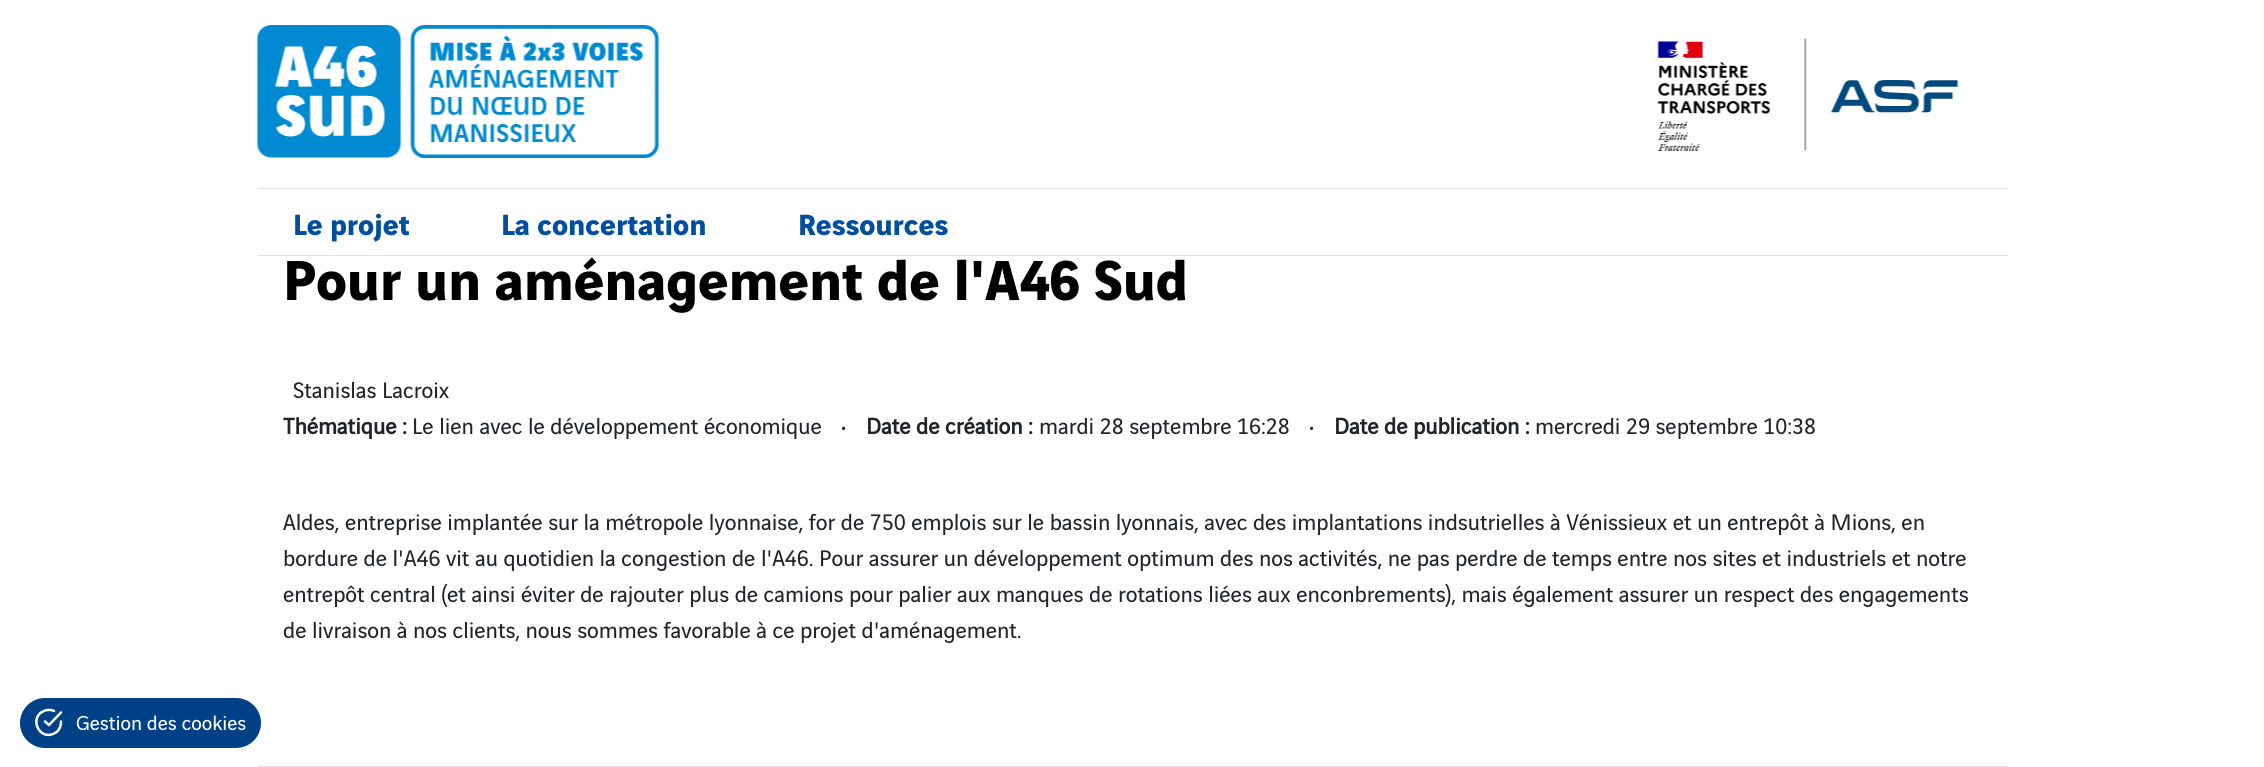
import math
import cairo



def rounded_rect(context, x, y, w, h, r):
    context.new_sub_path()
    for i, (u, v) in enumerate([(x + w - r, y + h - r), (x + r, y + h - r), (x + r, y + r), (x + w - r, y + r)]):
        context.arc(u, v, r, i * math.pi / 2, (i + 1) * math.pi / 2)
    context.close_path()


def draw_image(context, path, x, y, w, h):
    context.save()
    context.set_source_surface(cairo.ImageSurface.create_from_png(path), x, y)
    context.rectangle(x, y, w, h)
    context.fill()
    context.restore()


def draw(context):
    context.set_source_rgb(1, 1, 1)
    context.paint()
    context.set_source_rgb(222 / 255, 226 / 255, 230 / 255)
    context.rectangle(258, 188, 1750, 1)
    context.fill()
    draw_image(context, "images/1.png", 257, 25, 402, 133)
    draw_image(context, "images/2.png", 1657, 38, 301, 113)
    context.rectangle(258, 255, 1750, 1)
    context.fill()
    context.set_source_rgb(0, 64 / 255, 135 / 255)
    rounded_rect(context, 20, 698, 241, 50, 25)
    context.fill()
    context.new_path()
    context.move_to(61, 721.5)
    context.curve_to(61, 726.5, 59, 731.5, 54, 733.5)
    context.curve_to(39, 741, 28.5, 717, 44, 711)
    context.curve_to(47, 709.5, 51, 709.5, 54, 711)
    context.move_to(61, 712.5)
    context.line_to(49, 725)
    context.line_to(45, 721.5)
    context.set_source_rgb(1, 1, 1)
    context.set_line_width(2.5)
    context.set_line_cap(cairo.LineCap.ROUND)
    context.set_line_join(cairo.LineJoin.ROUND)
    context.stroke()
    context.set_source_rgb(222 / 255, 226 / 255, 230 / 255)
    context.rectangle(258, 766, 1750, 1)
    context.fill()
    context.select_font_face("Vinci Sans", cairo.FontSlant.NORMAL, cairo.FontWeight.BOLD)
    context.set_font_size(31.25)
    context.set_source_rgb(0, 79 / 255, 159 / 255)
    context.move_to(293, 235)
    context.show_text("Le projet")
    context.move_to(501, 235)
    context.show_text("La concertation")
    context.move_to(798, 235)
    context.show_text("Ressources")
    context.set_font_size(60)
    context.set_source_rgb(0, 0, 0)
    context.move_to(283, 300)
    context.show_text("Pour un aménagement de l'A46 Sud")
    context.select_font_face("Vinci Sans")
    context.set_font_size(24)
    context.set_source_rgb(33 / 255, 37 / 255, 41 / 255)
    context.move_to(293, 398)
    context.show_text("Stanislas Lacroix")
    context.select_font_face("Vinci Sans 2", cairo.FontSlant.NORMAL, cairo.FontWeight.BOLD)
    context.move_to(283, 434)
    context.show_text("Thématique :")
    context.select_font_face("Vinci Sans")
    context.move_to(412, 434)
    context.show_text("Le lien avec le développement économique")
    context.move_to(841, 434)
    context.show_text("•")
    context.select_font_face("Vinci Sans 2", cairo.FontSlant.NORMAL, cairo.FontWeight.BOLD)
    context.move_to(866, 434)
    context.show_text("Date de création :")
    context.select_font_face("Vinci Sans")
    context.move_to(1039, 434)
    context.show_text("mardi 28 septembre 16:28")
    context.move_to(1309, 434)
    context.show_text("•")
    context.select_font_face("Vinci Sans 2", cairo.FontSlant.NORMAL, cairo.FontWeight.BOLD)
    context.move_to(1334, 434)
    context.show_text("Date de publication :")
    context.select_font_face("Vinci Sans")
    context.move_to(1535, 434)
    context.show_text("mercredi 29 septembre 10:38")
    context.move_to(283, 530)
    context.show_text("Aldes, entreprise implantée sur la métropole lyonnaise, for de 750 emplois sur le bassin lyonnais, avec des implantations indsutrielles à Vénissieux et un entrepôt à Mions, en")
    context.move_to(283, 566)
    context.show_text("bordure de l'A46 vit au quotidien la congestion de l'A46. Pour assurer un développement optimum des nos activités, ne pas perdre de temps entre nos sites et industriels et notre")
    context.move_to(283, 602)
    context.show_text("entrepôt central (et ainsi éviter de rajouter plus de camions pour palier aux manques de rotations liées aux enconbrements), mais également assurer un respect des engagements")
    context.move_to(283, 638)
    context.show_text("de livraison à nos clients, nous sommes favorable à ce projet d'aménagement.")
    context.set_font_size(21.5)
    context.set_source_rgb(1, 1, 1)
    context.move_to(76, 730)
    context.show_text("Gestion des cookies")


surface = cairo.ImageSurface(cairo.Format.RGB24, 2264, 767)
context = cairo.Context(surface)
options = cairo.FontOptions()
options.set_hint_metrics(cairo.HintMetrics.OFF)
options.set_hint_style(cairo.HintStyle.NONE)
context.set_font_options(options)
context.set_miter_limit(4)
draw(context)
surface.write_to_png("out.png")
